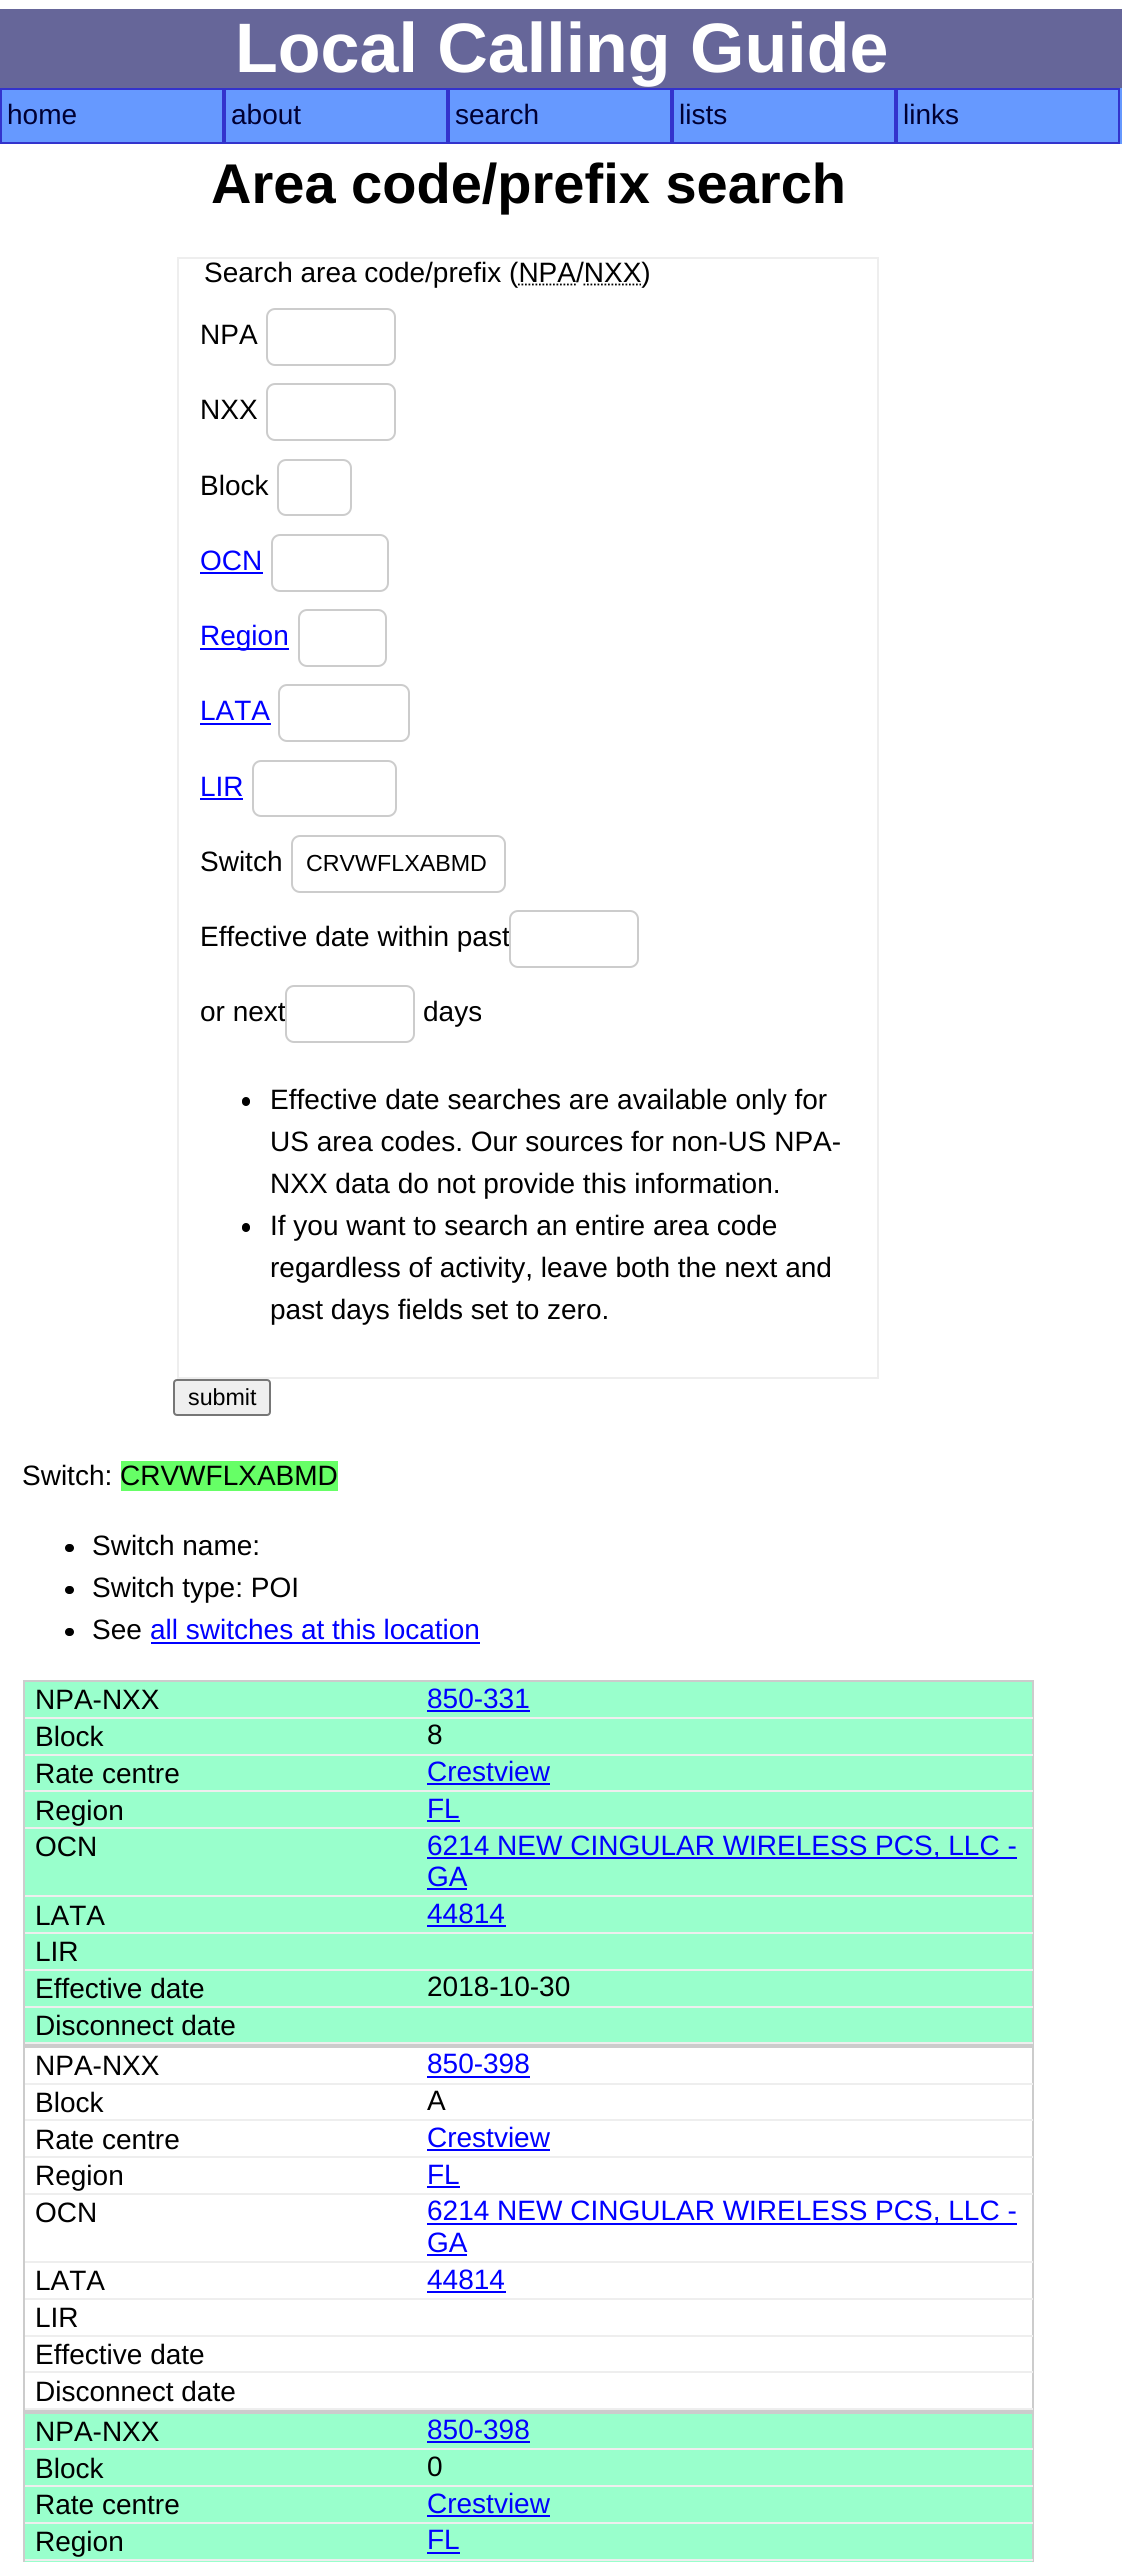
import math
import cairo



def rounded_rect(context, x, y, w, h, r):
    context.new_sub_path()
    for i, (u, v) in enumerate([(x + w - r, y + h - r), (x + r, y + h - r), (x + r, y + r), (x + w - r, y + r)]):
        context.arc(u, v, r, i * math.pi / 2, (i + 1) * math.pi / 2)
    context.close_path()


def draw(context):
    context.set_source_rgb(1, 1, 1)
    context.paint()
    context.set_source_rgb(102 / 255, 102 / 255, 153 / 255)
    context.rectangle(0, 9, 1122, 79)
    context.fill()
    context.set_source_rgb(102 / 255, 153 / 255, 1)
    context.rectangle(2, 88, 1120, 56)
    context.fill()
    context.rectangle(1, 89, 222, 54)
    context.set_source_rgb(51 / 255, 51 / 255, 204 / 255)
    context.stroke()
    context.rectangle(225, 89, 222, 54)
    context.stroke()
    context.rectangle(449, 89, 222, 54)
    context.stroke()
    context.rectangle(673, 89, 222, 54)
    context.stroke()
    context.rectangle(897, 89, 222, 54)
    context.stroke()
    context.rectangle(178, 258, 700, 1120)
    context.set_source_rgb(238 / 255, 238 / 255, 238 / 255)
    context.stroke()
    context.new_path()
    context.move_to(518, 284.5)
    context.line_to(576, 284.5)
    context.set_source_rgb(0, 0, 0)
    context.set_line_width(1.8)
    context.set_dash([1.75, 1.75])
    context.stroke()
    context.new_path()
    context.move_to(583.5, 284.5)
    context.line_to(641, 284.5)
    context.stroke()
    rounded_rect(context, 267, 309, 128, 56, 8)
    context.set_source_rgb(204 / 255, 204 / 255, 204 / 255)
    context.set_line_width(2)
    context.set_dash([])
    context.stroke()
    rounded_rect(context, 267, 384, 128, 56, 8)
    context.stroke()
    rounded_rect(context, 278, 460, 73, 55, 8)
    context.stroke()
    context.set_source_rgb(0, 0, 1)
    context.rectangle(200, 572, 63, 2)
    context.fill()
    rounded_rect(context, 272, 535, 116, 56, 8)
    context.set_source_rgb(204 / 255, 204 / 255, 204 / 255)
    context.stroke()
    context.set_source_rgb(0, 0, 1)
    context.rectangle(200, 648, 89, 2)
    context.fill()
    rounded_rect(context, 299, 610, 87, 56, 8)
    context.set_source_rgb(204 / 255, 204 / 255, 204 / 255)
    context.stroke()
    context.set_source_rgb(0, 0, 1)
    context.rectangle(200, 723, 71, 2)
    context.fill()
    rounded_rect(context, 279, 685, 130, 56, 8)
    context.set_source_rgb(204 / 255, 204 / 255, 204 / 255)
    context.stroke()
    context.set_source_rgb(0, 0, 1)
    context.rectangle(200, 798, 43, 2)
    context.fill()
    rounded_rect(context, 253, 761, 143, 55, 8)
    context.set_source_rgb(204 / 255, 204 / 255, 204 / 255)
    context.stroke()
    rounded_rect(context, 292, 836, 213, 56, 8)
    context.stroke()
    context.set_source_rgb(0, 0, 0)
    rounded_rect(context, 242, 1097, 8, 9, 4)
    context.fill()
    rounded_rect(context, 242, 1223, 8, 9, 4)
    context.fill()
    context.set_source_rgb(239 / 255, 239 / 255, 239 / 255)
    rounded_rect(context, 174, 1380, 96, 35, 3)
    context.fill_preserve()
    context.set_source_rgb(118 / 255, 118 / 255, 118 / 255)
    context.stroke()
    context.set_source_rgb(102 / 255, 1, 102 / 255)
    context.rectangle(121, 1461, 217, 30)
    context.fill()
    context.set_source_rgb(0, 0, 0)
    rounded_rect(context, 65, 1544, 9, 8, 4)
    context.fill()
    rounded_rect(context, 65, 1586, 9, 8, 4)
    context.fill()
    rounded_rect(context, 65, 1628, 9, 8, 4)
    context.fill()
    context.set_source_rgb(0, 0, 1)
    context.rectangle(151, 1642, 329, 2)
    context.fill()
    context.set_source_rgb(153 / 255, 1, 204 / 255)
    context.rectangle(25, 1682, 1007, 360)
    context.fill()
    context.rectangle(24, 1681, 1009, 364)
    context.set_source_rgb(204 / 255, 204 / 255, 204 / 255)
    context.stroke()
    context.set_source_rgb(238 / 255, 238 / 255, 238 / 255)
    context.rectangle(25, 1717, 1008, 2)
    context.fill()
    context.set_source_rgb(0, 0, 1)
    context.rectangle(427, 1710, 103, 2)
    context.fill()
    context.set_source_rgb(238 / 255, 238 / 255, 238 / 255)
    context.rectangle(25, 1754, 1008, 2)
    context.fill()
    context.rectangle(25, 1790, 1008, 2)
    context.fill()
    context.set_source_rgb(0, 0, 1)
    context.rectangle(427, 1783, 123, 2)
    context.fill()
    context.set_source_rgb(238 / 255, 238 / 255, 238 / 255)
    context.rectangle(25, 1827, 1008, 2)
    context.fill()
    context.set_source_rgb(0, 0, 1)
    context.rectangle(427, 1820, 33, 2)
    context.fill()
    context.set_source_rgb(238 / 255, 238 / 255, 238 / 255)
    context.rectangle(25, 1895, 1008, 2)
    context.fill()
    context.set_source_rgb(0, 0, 1)
    context.rectangle(427, 1857, 590, 2)
    context.fill()
    context.rectangle(427, 1888, 40, 2)
    context.fill()
    context.set_source_rgb(238 / 255, 238 / 255, 238 / 255)
    context.rectangle(25, 1932, 1008, 2)
    context.fill()
    context.set_source_rgb(0, 0, 1)
    context.rectangle(427, 1925, 79, 2)
    context.fill()
    context.set_source_rgb(238 / 255, 238 / 255, 238 / 255)
    context.rectangle(25, 1969, 1008, 2)
    context.fill()
    context.rectangle(25, 2006, 1008, 2)
    context.fill()
    context.rectangle(25, 2042, 1008, 2)
    context.fill()
    context.rectangle(24, 2047, 1009, 364)
    context.set_source_rgb(204 / 255, 204 / 255, 204 / 255)
    context.stroke()
    context.set_source_rgb(238 / 255, 238 / 255, 238 / 255)
    context.rectangle(25, 2083, 1008, 2)
    context.fill()
    context.set_source_rgb(0, 0, 1)
    context.rectangle(427, 2076, 103, 2)
    context.fill()
    context.set_source_rgb(238 / 255, 238 / 255, 238 / 255)
    context.rectangle(25, 2119, 1008, 2)
    context.fill()
    context.rectangle(25, 2156, 1008, 2)
    context.fill()
    context.set_source_rgb(0, 0, 1)
    context.rectangle(427, 2149, 123, 2)
    context.fill()
    context.set_source_rgb(238 / 255, 238 / 255, 238 / 255)
    context.rectangle(25, 2193, 1008, 2)
    context.fill()
    context.set_source_rgb(0, 0, 1)
    context.rectangle(427, 2186, 33, 2)
    context.fill()
    context.set_source_rgb(238 / 255, 238 / 255, 238 / 255)
    context.rectangle(25, 2261, 1008, 2)
    context.fill()
    context.set_source_rgb(0, 0, 1)
    context.rectangle(427, 2223, 590, 2)
    context.fill()
    context.rectangle(427, 2254, 40, 2)
    context.fill()
    context.set_source_rgb(238 / 255, 238 / 255, 238 / 255)
    context.rectangle(25, 2298, 1008, 2)
    context.fill()
    context.set_source_rgb(0, 0, 1)
    context.rectangle(427, 2291, 79, 2)
    context.fill()
    context.set_source_rgb(238 / 255, 238 / 255, 238 / 255)
    context.rectangle(25, 2335, 1008, 2)
    context.fill()
    context.rectangle(25, 2371, 1008, 2)
    context.fill()
    context.rectangle(25, 2408, 1008, 2)
    context.fill()
    context.set_source_rgb(153 / 255, 1, 204 / 255)
    context.rectangle(24, 2413, 1009, 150)
    context.fill_preserve()
    context.set_source_rgb(204 / 255, 204 / 255, 204 / 255)
    context.stroke()
    context.set_source_rgb(238 / 255, 238 / 255, 238 / 255)
    context.rectangle(25, 2448, 1008, 2)
    context.fill()
    context.set_source_rgb(0, 0, 1)
    context.rectangle(427, 2441, 103, 2)
    context.fill()
    context.set_source_rgb(238 / 255, 238 / 255, 238 / 255)
    context.rectangle(25, 2485, 1008, 2)
    context.fill()
    context.rectangle(25, 2522, 1008, 2)
    context.fill()
    context.set_source_rgb(0, 0, 1)
    context.rectangle(427, 2515, 123, 2)
    context.fill()
    context.set_source_rgb(238 / 255, 238 / 255, 238 / 255)
    context.rectangle(25, 2559, 1008, 2)
    context.fill()
    context.set_source_rgb(0, 0, 1)
    context.rectangle(427, 2552, 33, 2)
    context.fill()
    context.select_font_face("Liberation Sans", cairo.FontSlant.NORMAL, cairo.FontWeight.BOLD)
    context.set_font_size(70)
    context.set_source_rgb(1, 1, 1)
    context.move_to(235, 72)
    context.show_text("Local Calling Guide")
    context.select_font_face("Liberation Sans")
    context.set_font_size(28)
    context.set_source_rgb(0, 0, 51 / 255)
    context.move_to(7, 124)
    context.show_text("home")
    context.move_to(231, 124)
    context.show_text("about")
    context.move_to(455, 124)
    context.show_text("search")
    context.move_to(679, 124)
    context.show_text("lists")
    context.move_to(903, 124)
    context.show_text("links")
    context.select_font_face("Liberation Sans", cairo.FontSlant.NORMAL, cairo.FontWeight.BOLD)
    context.set_font_size(56)
    context.set_source_rgb(0, 0, 0)
    context.move_to(211, 203)
    context.show_text("Area code/prefix search")
    context.select_font_face("Liberation Sans")
    context.set_font_size(28)
    context.move_to(204, 282)
    context.show_text("Search area code/prefix (NPA/NXX)")
    context.move_to(200, 344)
    context.show_text("NPA")
    context.move_to(200, 419)
    context.show_text("NXX")
    context.move_to(200, 495)
    context.show_text("Block")
    context.set_source_rgb(0, 0, 1)
    context.move_to(200, 570)
    context.show_text("OCN")
    context.move_to(200, 645)
    context.show_text("Region")
    context.move_to(200, 720)
    context.show_text("LATA")
    context.move_to(200, 796)
    context.show_text("LIR")
    context.set_source_rgb(0, 0, 0)
    context.move_to(200, 871)
    context.show_text("Switch")
    context.set_font_size(23.25)
    context.move_to(306, 871)
    context.show_text("CRVWFLXABMD")
    context.set_font_size(28)
    context.move_to(200, 946)
    context.show_text("Effective date within past")
    context.set_source_rgb(1, 1, 1)
    rounded_rect(context, 510, 911, 128, 56, 8)
    context.fill_preserve()
    context.set_source_rgb(204 / 255, 204 / 255, 204 / 255)
    context.stroke()
    context.set_source_rgb(0, 0, 0)
    context.move_to(200, 1021)
    context.show_text("or next")
    context.set_source_rgb(1, 1, 1)
    rounded_rect(context, 286, 986, 128, 56, 8)
    context.fill_preserve()
    context.set_source_rgb(204 / 255, 204 / 255, 204 / 255)
    context.stroke()
    context.set_source_rgb(0, 0, 0)
    context.move_to(423, 1021)
    context.show_text("days")
    context.move_to(270, 1109)
    context.show_text("Effective date searches are available only for")
    context.move_to(270, 1151)
    context.show_text("US area codes. Our sources for non-US NPA-")
    context.move_to(270, 1193)
    context.show_text("NXX data do not provide this information.")
    context.move_to(270, 1235)
    context.show_text("If you want to search an entire area code")
    context.move_to(270, 1277)
    context.show_text("regardless of activity, leave both the next and")
    context.move_to(270, 1319)
    context.show_text("past days fields set to zero.")
    context.set_font_size(23.25)
    context.move_to(188, 1405)
    context.show_text("submit")
    context.set_font_size(28)
    context.move_to(22, 1485)
    context.show_text("Switch:")
    context.move_to(120, 1485)
    context.show_text("CRVWFLXABMD")
    context.move_to(92, 1555)
    context.show_text("Switch name:")
    context.move_to(92, 1597)
    context.show_text("Switch type: POI")
    context.move_to(92, 1639)
    context.show_text("See")
    context.set_source_rgb(0, 0, 1)
    context.move_to(150, 1639)
    context.show_text("all switches at this location")
    context.set_source_rgb(0, 0, 0)
    context.move_to(35, 1709)
    context.show_text("NPA-NXX")
    context.set_source_rgb(0, 0, 1)
    context.move_to(427, 1708)
    context.show_text("850-331")
    context.set_source_rgb(0, 0, 0)
    context.move_to(35, 1746)
    context.show_text("Block")
    context.move_to(427, 1744)
    context.show_text("8")
    context.move_to(35, 1783)
    context.show_text("Rate centre")
    context.set_source_rgb(0, 0, 1)
    context.move_to(427, 1781)
    context.show_text("Crestview")
    context.set_source_rgb(0, 0, 0)
    context.move_to(35, 1820)
    context.show_text("Region")
    context.set_source_rgb(0, 0, 1)
    context.move_to(427, 1818)
    context.show_text("FL")
    context.set_source_rgb(0, 0, 0)
    context.move_to(35, 1856)
    context.show_text("OCN")
    context.set_source_rgb(0, 0, 1)
    context.move_to(427, 1855)
    context.show_text("6214 NEW CINGULAR WIRELESS PCS, LLC -")
    context.move_to(427, 1886)
    context.show_text("GA")
    context.set_source_rgb(0, 0, 0)
    context.move_to(35, 1925)
    context.show_text("LATA")
    context.set_source_rgb(0, 0, 1)
    context.move_to(427, 1923)
    context.show_text("44814")
    context.set_source_rgb(0, 0, 0)
    context.move_to(35, 1961)
    context.show_text("LIR")
    context.move_to(35, 1998)
    context.show_text("Effective date")
    context.move_to(427, 1996)
    context.show_text("2018-10-30")
    context.move_to(35, 2035)
    context.show_text("Disconnect date")
    context.move_to(35, 2075)
    context.show_text("NPA-NXX")
    context.set_source_rgb(0, 0, 1)
    context.move_to(427, 2073)
    context.show_text("850-398")
    context.set_source_rgb(0, 0, 0)
    context.move_to(35, 2112)
    context.show_text("Block")
    context.move_to(427, 2110)
    context.show_text("A")
    context.move_to(35, 2149)
    context.show_text("Rate centre")
    context.set_source_rgb(0, 0, 1)
    context.move_to(427, 2147)
    context.show_text("Crestview")
    context.set_source_rgb(0, 0, 0)
    context.move_to(35, 2185)
    context.show_text("Region")
    context.set_source_rgb(0, 0, 1)
    context.move_to(427, 2184)
    context.show_text("FL")
    context.set_source_rgb(0, 0, 0)
    context.move_to(35, 2222)
    context.show_text("OCN")
    context.set_source_rgb(0, 0, 1)
    context.move_to(427, 2220)
    context.show_text("6214 NEW CINGULAR WIRELESS PCS, LLC -")
    context.move_to(427, 2252)
    context.show_text("GA")
    context.set_source_rgb(0, 0, 0)
    context.move_to(35, 2290)
    context.show_text("LATA")
    context.set_source_rgb(0, 0, 1)
    context.move_to(427, 2289)
    context.show_text("44814")
    context.set_source_rgb(0, 0, 0)
    context.move_to(35, 2327)
    context.show_text("LIR")
    context.move_to(35, 2364)
    context.show_text("Effective date")
    context.move_to(35, 2401)
    context.show_text("Disconnect date")
    context.move_to(35, 2441)
    context.show_text("NPA-NXX")
    context.set_source_rgb(0, 0, 1)
    context.move_to(427, 2439)
    context.show_text("850-398")
    context.set_source_rgb(0, 0, 0)
    context.move_to(35, 2478)
    context.show_text("Block")
    context.move_to(427, 2476)
    context.show_text("0")
    context.move_to(35, 2514)
    context.show_text("Rate centre")
    context.set_source_rgb(0, 0, 1)
    context.move_to(427, 2513)
    context.show_text("Crestview")
    context.set_source_rgb(0, 0, 0)
    context.move_to(35, 2551)
    context.show_text("Region")
    context.set_source_rgb(0, 0, 1)
    context.move_to(427, 2549)
    context.show_text("FL")


surface = cairo.ImageSurface(cairo.Format.RGB24, 1122, 2562)
context = cairo.Context(surface)
options = cairo.FontOptions()
options.set_hint_metrics(cairo.HintMetrics.OFF)
options.set_hint_style(cairo.HintStyle.NONE)
context.set_font_options(options)
context.set_miter_limit(4)
draw(context)
surface.write_to_png("out.png")
